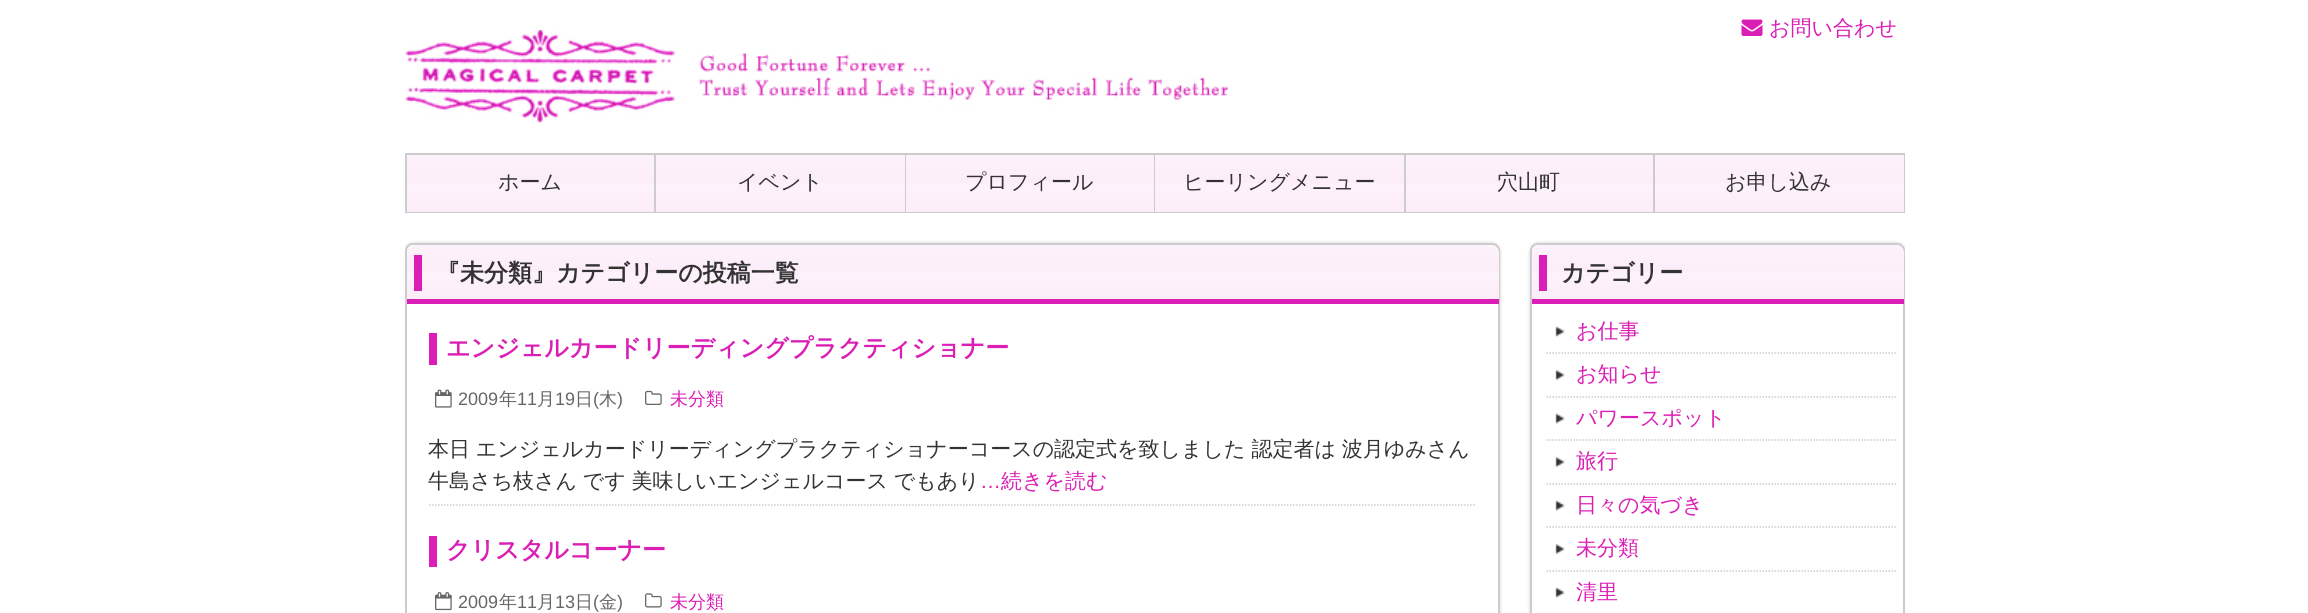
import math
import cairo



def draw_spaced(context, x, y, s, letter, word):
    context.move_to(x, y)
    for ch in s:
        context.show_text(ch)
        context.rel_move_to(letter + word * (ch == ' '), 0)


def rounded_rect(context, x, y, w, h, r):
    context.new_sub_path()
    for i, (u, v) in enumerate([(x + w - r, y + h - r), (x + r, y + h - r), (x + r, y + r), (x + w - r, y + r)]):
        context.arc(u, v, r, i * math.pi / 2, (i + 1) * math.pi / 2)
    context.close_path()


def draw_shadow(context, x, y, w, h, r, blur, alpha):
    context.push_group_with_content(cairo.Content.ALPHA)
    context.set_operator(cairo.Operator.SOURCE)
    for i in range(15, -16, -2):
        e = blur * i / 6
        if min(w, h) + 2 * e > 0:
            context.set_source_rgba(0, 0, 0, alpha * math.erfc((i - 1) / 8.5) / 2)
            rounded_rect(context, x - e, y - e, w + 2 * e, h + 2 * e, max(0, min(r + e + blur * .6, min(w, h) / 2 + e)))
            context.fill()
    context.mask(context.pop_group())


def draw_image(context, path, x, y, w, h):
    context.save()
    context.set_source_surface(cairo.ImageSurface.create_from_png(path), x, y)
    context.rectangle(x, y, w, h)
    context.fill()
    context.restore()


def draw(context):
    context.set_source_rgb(1, 1, 1)
    context.paint()
    draw_image(context, "images/1.png", 405, 30, 824, 93)
    draw_image(context, "images/2.png", 1741, 19, 22, 17)
    context.set_source_rgb(204 / 255, 204 / 255, 204 / 255)
    context.rectangle(405, 153, 2, 60)
    context.fill()
    gradient = cairo.LinearGradient(530, 154, 530, 212)
    gradient.add_color_stop_rgba(0, 253 / 255, 242 / 255, 251 / 255, 1)
    gradient.add_color_stop_rgba(0.5, 252 / 255, 237 / 255, 249 / 255, 1)
    gradient.add_color_stop_rgba(0.51, 253 / 255, 242 / 255, 251 / 255, 1)
    gradient.add_color_stop_rgba(1, 252 / 255, 237 / 255, 249 / 255, 1)
    context.set_source(gradient)
    context.rectangle(407, 155, 247, 57)
    context.fill()
    context.set_source_rgb(204 / 255, 204 / 255, 204 / 255)
    context.rectangle(407, 153, 1498, 2)
    context.fill()
    context.rectangle(654, 153, 2, 60)
    context.fill()
    context.rectangle(407, 212, 249, 1)
    context.fill()
    gradient = cairo.LinearGradient(780, 154, 780, 212)
    gradient.add_color_stop_rgba(0, 253 / 255, 242 / 255, 251 / 255, 1)
    gradient.add_color_stop_rgba(0.5, 252 / 255, 237 / 255, 249 / 255, 1)
    gradient.add_color_stop_rgba(0.51, 253 / 255, 242 / 255, 251 / 255, 1)
    gradient.add_color_stop_rgba(1, 252 / 255, 237 / 255, 249 / 255, 1)
    context.set_source(gradient)
    context.rectangle(656, 155, 249, 57)
    context.fill()
    context.set_source_rgb(204 / 255, 204 / 255, 204 / 255)
    context.rectangle(905, 153, 1, 60)
    context.fill()
    context.rectangle(656, 212, 250, 1)
    context.fill()
    gradient = cairo.LinearGradient(1030, 154, 1030, 212)
    gradient.add_color_stop_rgba(0, 253 / 255, 242 / 255, 251 / 255, 1)
    gradient.add_color_stop_rgba(0.5, 252 / 255, 237 / 255, 249 / 255, 1)
    gradient.add_color_stop_rgba(0.51, 253 / 255, 242 / 255, 251 / 255, 1)
    gradient.add_color_stop_rgba(1, 252 / 255, 237 / 255, 249 / 255, 1)
    context.set_source(gradient)
    context.rectangle(906, 155, 248, 57)
    context.fill()
    context.set_source_rgb(204 / 255, 204 / 255, 204 / 255)
    context.rectangle(1154, 153, 1, 60)
    context.fill()
    context.rectangle(906, 212, 249, 1)
    context.fill()
    gradient = cairo.LinearGradient(1280, 154, 1280, 212)
    gradient.add_color_stop_rgba(0, 253 / 255, 242 / 255, 251 / 255, 1)
    gradient.add_color_stop_rgba(0.5, 252 / 255, 237 / 255, 249 / 255, 1)
    gradient.add_color_stop_rgba(0.51, 253 / 255, 242 / 255, 251 / 255, 1)
    gradient.add_color_stop_rgba(1, 252 / 255, 237 / 255, 249 / 255, 1)
    context.set_source(gradient)
    context.rectangle(1155, 155, 249, 57)
    context.fill()
    context.set_source_rgb(204 / 255, 204 / 255, 204 / 255)
    context.rectangle(1404, 153, 2, 60)
    context.fill()
    context.rectangle(1155, 212, 251, 1)
    context.fill()
    gradient = cairo.LinearGradient(1529, 154, 1529, 212)
    gradient.add_color_stop_rgba(0, 253 / 255, 242 / 255, 251 / 255, 1)
    gradient.add_color_stop_rgba(0.5, 252 / 255, 237 / 255, 249 / 255, 1)
    gradient.add_color_stop_rgba(0.51, 253 / 255, 242 / 255, 251 / 255, 1)
    gradient.add_color_stop_rgba(1, 252 / 255, 237 / 255, 249 / 255, 1)
    context.set_source(gradient)
    context.rectangle(1406, 155, 247, 57)
    context.fill()
    context.set_source_rgb(204 / 255, 204 / 255, 204 / 255)
    context.rectangle(1653, 153, 2, 60)
    context.fill()
    context.rectangle(1406, 212, 249, 1)
    context.fill()
    gradient = cairo.LinearGradient(1779, 154, 1779, 212)
    gradient.add_color_stop_rgba(0, 253 / 255, 242 / 255, 251 / 255, 1)
    gradient.add_color_stop_rgba(0.5, 252 / 255, 237 / 255, 249 / 255, 1)
    gradient.add_color_stop_rgba(0.51, 253 / 255, 242 / 255, 251 / 255, 1)
    gradient.add_color_stop_rgba(1, 252 / 255, 237 / 255, 249 / 255, 1)
    context.set_source(gradient)
    context.rectangle(1655, 155, 249, 57)
    context.fill()
    context.set_source_rgb(204 / 255, 204 / 255, 204 / 255)
    context.rectangle(1904, 153, 1, 60)
    context.fill()
    context.rectangle(1655, 212, 250, 1)
    context.fill()
    context.save()
    context.rectangle(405, 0, 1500, 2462)
    context.clip()
    context.set_source_rgb(204 / 255, 204 / 255, 204 / 255)
    draw_shadow(context, 405, 243, 1095, 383, 8, 1.5, 1)
    context.restore()
    context.set_source_rgb(1, 1, 1)
    rounded_rect(context, 406, 244, 1093, 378, 7)
    context.fill_preserve()
    context.set_source_rgb(204 / 255, 204 / 255, 204 / 255)
    context.stroke()
    gradient = cairo.LinearGradient(953, 244, 953, 299)
    gradient.add_color_stop_rgba(0, 253 / 255, 242 / 255, 251 / 255, 1)
    gradient.add_color_stop_rgba(0.5, 252 / 255, 237 / 255, 249 / 255, 1)
    gradient.add_color_stop_rgba(0.51, 253 / 255, 242 / 255, 251 / 255, 1)
    gradient.add_color_stop_rgba(1, 252 / 255, 237 / 255, 249 / 255, 1)
    context.set_source(gradient)
    context.new_path()
    context.move_to(415, 245)
    context.line_to(1491, 245)
    context.curve_to(1495.5, 245, 1499, 248.5, 1499, 253)
    context.line_to(1499, 299)
    context.line_to(407, 299)
    context.line_to(407, 253)
    context.curve_to(407, 248.5, 410.5, 245, 415, 245)
    context.close_path()
    context.fill()
    context.set_source_rgb(219 / 255, 30 / 255, 181 / 255)
    context.rectangle(407, 299, 1092, 5)
    context.fill()
    context.rectangle(414, 255, 8, 36)
    context.fill()
    context.new_path()
    context.move_to(429, 505)
    context.line_to(1476, 505)
    context.set_source_rgb(204 / 255, 204 / 255, 204 / 255)
    context.set_line_width(1.5)
    context.set_dash([1.5, 1.5])
    context.stroke()
    context.set_source_rgb(219 / 255, 30 / 255, 181 / 255)
    context.rectangle(429, 333, 8, 32)
    context.fill()
    draw_image(context, "images/3.png", 435, 389, 17, 19)
    draw_image(context, "images/4.png", 645, 390, 17, 15)
    context.rectangle(429, 536, 8, 31)
    context.fill()
    draw_image(context, "images/5.png", 435, 592, 17, 19)
    draw_image(context, "images/6.png", 645, 593, 17, 15)
    context.save()
    context.rectangle(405, 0, 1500, 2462)
    context.clip()
    context.set_source_rgb(204 / 255, 204 / 255, 204 / 255)
    draw_shadow(context, 1530, 243, 375, 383, 8, 1.5, 1)
    context.restore()
    context.set_source_rgb(1, 1, 1)
    rounded_rect(context, 1531, 244, 373, 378, 7)
    context.fill_preserve()
    context.set_source_rgb(204 / 255, 204 / 255, 204 / 255)
    context.set_line_width(2)
    context.set_dash([])
    context.stroke()
    gradient = cairo.LinearGradient(1718, 245, 1718, 299)
    gradient.add_color_stop_rgba(0, 253 / 255, 242 / 255, 251 / 255, 1)
    gradient.add_color_stop_rgba(0.5, 252 / 255, 237 / 255, 249 / 255, 1)
    gradient.add_color_stop_rgba(0.51, 253 / 255, 242 / 255, 251 / 255, 1)
    gradient.add_color_stop_rgba(1, 252 / 255, 237 / 255, 249 / 255, 1)
    context.set_source(gradient)
    context.new_path()
    context.move_to(1540, 245)
    context.line_to(1896, 245)
    context.curve_to(1900.5, 245, 1904, 248.5, 1904, 253)
    context.line_to(1904, 299)
    context.line_to(1532, 299)
    context.line_to(1532, 253)
    context.curve_to(1532, 248.5, 1535.5, 245, 1540, 245)
    context.close_path()
    context.fill()
    context.set_source_rgb(219 / 255, 30 / 255, 181 / 255)
    context.rectangle(1532, 299, 372, 5)
    context.fill()
    context.rectangle(1539, 255, 8, 36)
    context.fill()
    draw_image(context, "images/7.png", 1555, 326, 10, 11)
    context.new_path()
    context.move_to(1546.5, 353)
    context.line_to(1896, 353)
    context.set_source_rgb(204 / 255, 204 / 255, 204 / 255)
    context.set_line_width(1.5)
    context.set_dash([1.5, 1.5])
    context.stroke()
    draw_image(context, "images/8.png", 1555, 370, 10, 10)
    context.new_path()
    context.move_to(1546.5, 397)
    context.line_to(1896, 397)
    context.stroke()
    draw_image(context, "images/7.png", 1555, 413, 10, 11)
    context.new_path()
    context.move_to(1546.5, 440)
    context.line_to(1896, 440)
    context.stroke()
    draw_image(context, "images/8.png", 1555, 457, 10, 10)
    context.new_path()
    context.move_to(1546.5, 484)
    context.line_to(1896, 484)
    context.stroke()
    draw_image(context, "images/7.png", 1555, 500, 10, 11)
    context.new_path()
    context.move_to(1546.5, 527)
    context.line_to(1896, 527)
    context.stroke()
    draw_image(context, "images/8.png", 1555, 544, 10, 10)
    context.new_path()
    context.move_to(1546.5, 571)
    context.line_to(1896, 571)
    context.stroke()
    draw_image(context, "images/7.png", 1555, 587, 10, 11)
    context.select_font_face("WenQuanYi Zen Hei Medium")
    context.set_font_size(21)
    context.set_source_rgb(219 / 255, 30 / 255, 181 / 255)
    context.move_to(1769, 35)
    context.show_text("お問い合わせ")
    context.set_source_rgb(51 / 255, 51 / 255, 51 / 255)
    context.move_to(498, 189)
    context.show_text("ホーム")
    context.move_to(737, 189)
    context.show_text("イベント")
    context.move_to(965, 189)
    context.show_text("プロフィール")
    context.move_to(1183, 189)
    context.show_text("ヒーリングメニュー")
    context.move_to(1497, 189)
    context.show_text("穴山町")
    context.move_to(1725, 189)
    context.show_text("お申し込み")
    context.select_font_face("WenQuanYi Zen Hei", cairo.FontSlant.NORMAL, cairo.FontWeight.BOLD)
    context.set_font_size(24)
    context.move_to(436, 281)
    context.show_text("『未分類』カテゴリーの投稿一覧")
    context.set_source_rgb(219 / 255, 30 / 255, 181 / 255)
    context.move_to(446, 356)
    context.show_text("エンジェルカードリーディングプラクティショナー")
    context.select_font_face("Liberation Sans")
    context.set_font_size(18)
    context.set_source_rgb(102 / 255, 102 / 255, 102 / 255)
    context.move_to(458, 405)
    context.show_text("2009")
    context.select_font_face("WenQuanYi Zen Hei Medium")
    context.move_to(499, 405)
    context.show_text("年")
    context.select_font_face("Liberation Sans")
    context.move_to(517, 405)
    context.show_text("11")
    context.select_font_face("WenQuanYi Zen Hei Medium")
    context.move_to(537, 405)
    context.show_text("月")
    context.select_font_face("Liberation Sans")
    context.move_to(555, 405)
    context.show_text("19")
    context.select_font_face("WenQuanYi Zen Hei Medium")
    context.move_to(575, 405)
    context.show_text("日")
    context.select_font_face("Liberation Sans")
    context.move_to(593, 405)
    context.show_text("(")
    context.select_font_face("WenQuanYi Zen Hei Medium")
    context.move_to(599, 405)
    context.show_text("木")
    context.select_font_face("Liberation Sans")
    context.move_to(617, 405)
    context.show_text(")")
    context.select_font_face("WenQuanYi Zen Hei Medium")
    context.set_source_rgb(219 / 255, 30 / 255, 181 / 255)
    context.move_to(670, 405)
    context.show_text("未分類")
    context.set_font_size(21)
    context.set_source_rgb(51 / 255, 51 / 255, 51 / 255)
    draw_spaced(context, 428, 456, "本日 エンジェルカードリーディングプラクティショナーコースの認定式を致しました 認定者は 波月ゆみさん", 0, -0.5)
    draw_spaced(context, 428, 488, "牛島さち枝さん です 美味しいエンジェルコース でもあり", 0, -0.5)
    context.select_font_face("Liberation Sans")
    context.set_source_rgb(219 / 255, 30 / 255, 181 / 255)
    context.move_to(980, 488)
    context.show_text("…")
    context.select_font_face("WenQuanYi Zen Hei Medium")
    context.move_to(1001, 488)
    context.show_text("続きを読む")
    context.select_font_face("WenQuanYi Zen Hei", cairo.FontSlant.NORMAL, cairo.FontWeight.BOLD)
    context.set_font_size(24)
    context.move_to(446, 558)
    context.show_text("クリスタルコーナー")
    context.select_font_face("Liberation Sans")
    context.set_font_size(18)
    context.set_source_rgb(102 / 255, 102 / 255, 102 / 255)
    context.move_to(458, 608)
    context.show_text("2009")
    context.select_font_face("WenQuanYi Zen Hei Medium")
    context.move_to(499, 608)
    context.show_text("年")
    context.select_font_face("Liberation Sans")
    context.move_to(517, 608)
    context.show_text("11")
    context.select_font_face("WenQuanYi Zen Hei Medium")
    context.move_to(537, 608)
    context.show_text("月")
    context.select_font_face("Liberation Sans")
    context.move_to(555, 608)
    context.show_text("13")
    context.select_font_face("WenQuanYi Zen Hei Medium")
    context.move_to(575, 608)
    context.show_text("日")
    context.select_font_face("Liberation Sans")
    context.move_to(593, 608)
    context.show_text("(")
    context.select_font_face("WenQuanYi Zen Hei Medium")
    context.move_to(599, 608)
    context.show_text("金")
    context.select_font_face("Liberation Sans")
    context.move_to(617, 608)
    context.show_text(")")
    context.select_font_face("WenQuanYi Zen Hei Medium")
    context.set_source_rgb(219 / 255, 30 / 255, 181 / 255)
    context.move_to(670, 608)
    context.show_text("未分類")
    context.select_font_face("WenQuanYi Zen Hei", cairo.FontSlant.NORMAL, cairo.FontWeight.BOLD)
    context.set_font_size(24)
    context.set_source_rgb(51 / 255, 51 / 255, 51 / 255)
    context.move_to(1561, 281)
    context.show_text("カテゴリー")
    context.select_font_face("WenQuanYi Zen Hei Medium")
    context.set_font_size(21)
    context.set_source_rgb(219 / 255, 30 / 255, 181 / 255)
    context.move_to(1576, 338)
    context.show_text("お仕事")
    context.move_to(1576, 381)
    context.show_text("お知らせ")
    context.move_to(1576, 425)
    context.show_text("パワースポット")
    context.move_to(1576, 468)
    context.show_text("旅行")
    context.move_to(1576, 512)
    context.show_text("日々の気づき")
    context.move_to(1576, 555)
    context.show_text("未分類")
    context.move_to(1576, 599)
    context.show_text("清里")


surface = cairo.ImageSurface(cairo.Format.RGB24, 2308, 613)
context = cairo.Context(surface)
options = cairo.FontOptions()
options.set_hint_metrics(cairo.HintMetrics.OFF)
options.set_hint_style(cairo.HintStyle.NONE)
context.set_font_options(options)
context.set_miter_limit(4)
draw(context)
surface.write_to_png("out.png")
